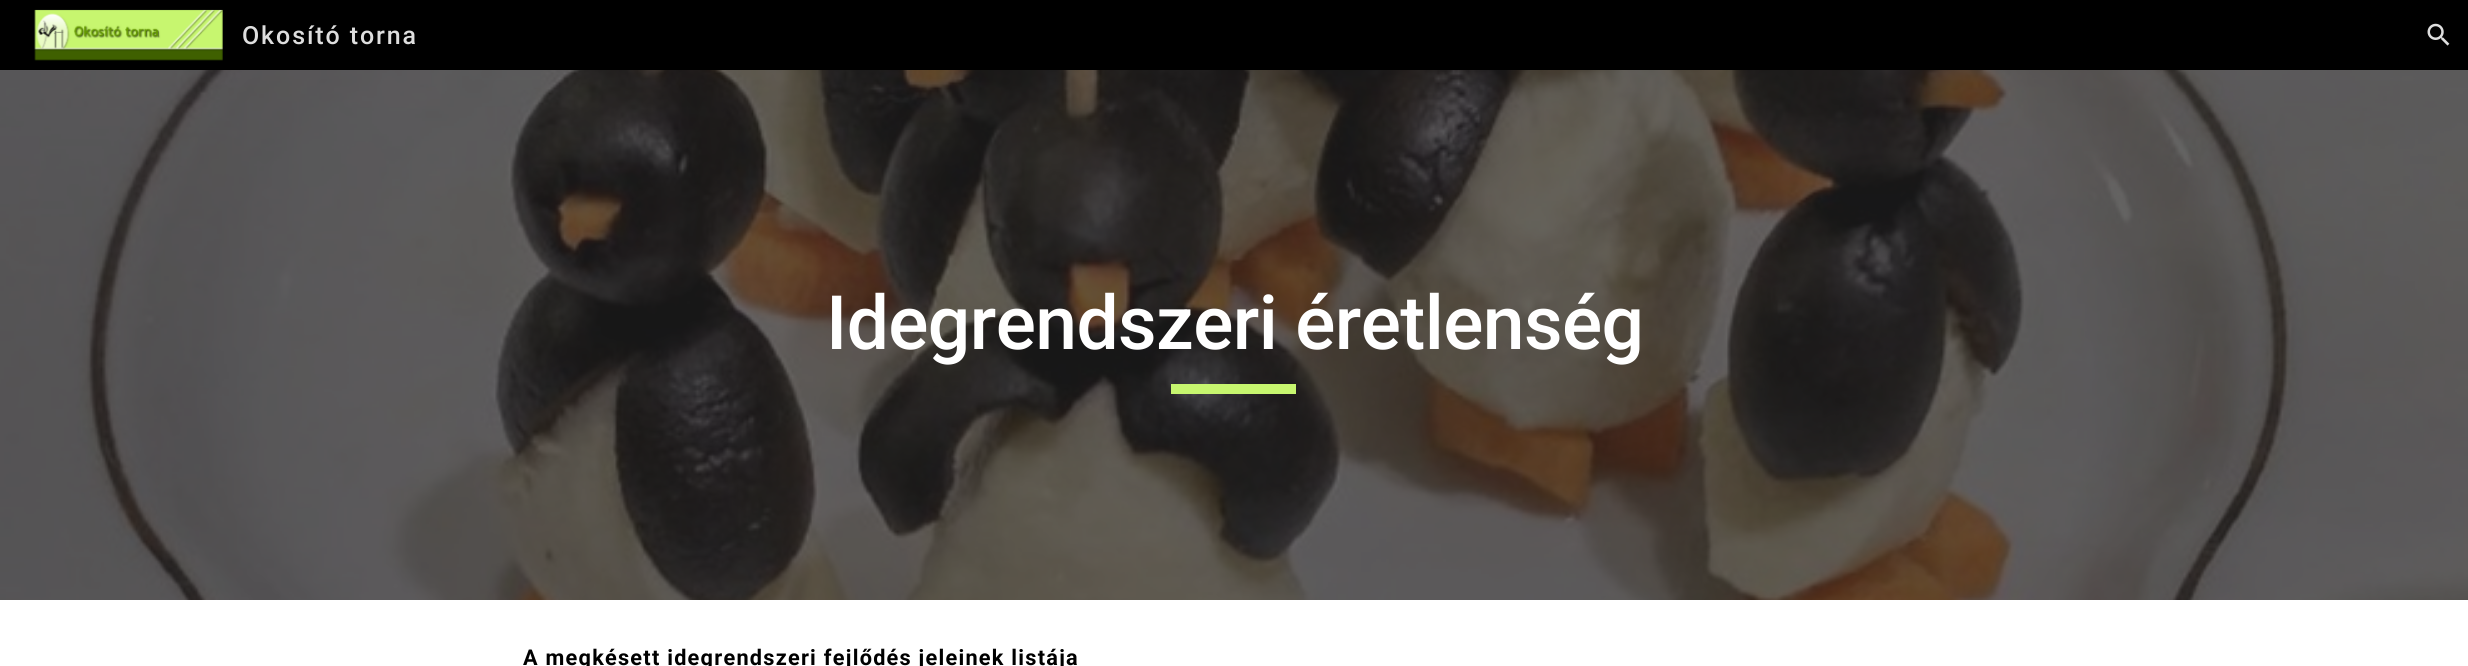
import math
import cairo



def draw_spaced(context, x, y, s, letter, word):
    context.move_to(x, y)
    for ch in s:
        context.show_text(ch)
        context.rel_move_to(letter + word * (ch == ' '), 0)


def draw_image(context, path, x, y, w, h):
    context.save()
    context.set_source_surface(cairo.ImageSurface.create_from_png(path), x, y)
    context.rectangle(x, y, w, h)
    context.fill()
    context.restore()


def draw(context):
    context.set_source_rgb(1, 1, 1)
    context.paint()
    context.set_source_rgb(0, 0, 0)
    context.rectangle(0, 0, 2468, 70)
    context.fill()
    draw_image(context, "images/1.png", 34, 9, 189, 52)
    draw_image(context, "images/2.png", 2427, 23, 23, 23)
    draw_image(context, "images/3.png", 0, 70, 2468, 530)
    context.set_source_rgb(199 / 255, 246 / 255, 111 / 255)
    context.rectangle(1171, 384, 125, 10)
    context.fill()
    context.select_font_face("Roboto Medium")
    context.set_font_size(25)
    context.set_source_rgb(222 / 255, 222 / 255, 222 / 255)
    draw_spaced(context, 242, 44, "Okosító torna", 1.9, 0)
    context.set_font_size(75)
    context.set_source_rgb(1, 1, 1)
    draw_spaced(context, 826, 349, "Idegrendszeri éretlenség", -0.6, 0)
    context.select_font_face("Roboto", cairo.FontSlant.NORMAL, cairo.FontWeight.BOLD)
    context.set_font_size(21.7)
    context.set_source_rgb(0, 0, 0)
    draw_spaced(context, 523, 665, "A megkésett idegrendszeri fejlődés jeleinek listája", 1.25, 0)


surface = cairo.ImageSurface(cairo.Format.RGB24, 2468, 666)
context = cairo.Context(surface)
options = cairo.FontOptions()
options.set_hint_metrics(cairo.HintMetrics.OFF)
options.set_hint_style(cairo.HintStyle.NONE)
context.set_font_options(options)
context.set_miter_limit(4)
draw(context)
surface.write_to_png("out.png")
